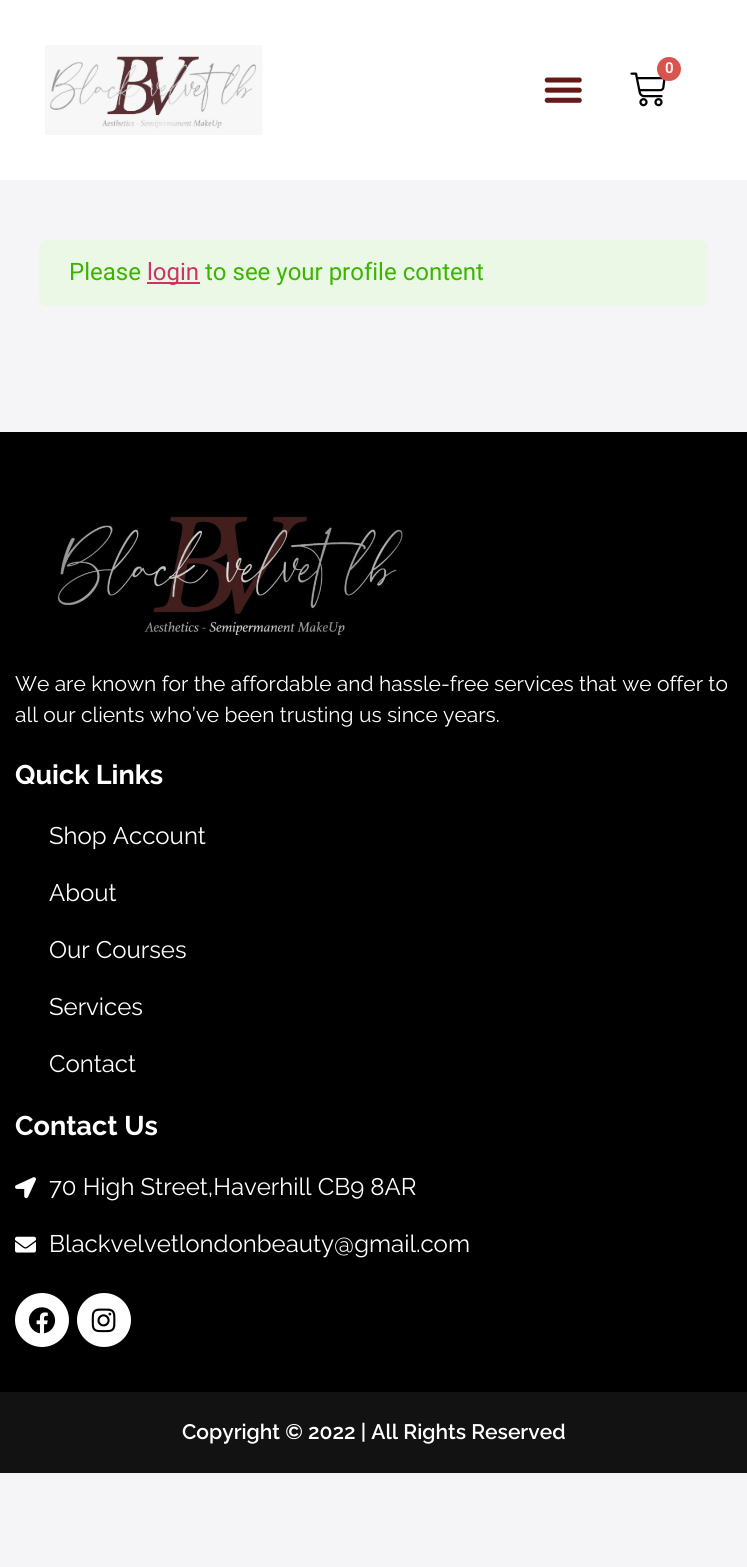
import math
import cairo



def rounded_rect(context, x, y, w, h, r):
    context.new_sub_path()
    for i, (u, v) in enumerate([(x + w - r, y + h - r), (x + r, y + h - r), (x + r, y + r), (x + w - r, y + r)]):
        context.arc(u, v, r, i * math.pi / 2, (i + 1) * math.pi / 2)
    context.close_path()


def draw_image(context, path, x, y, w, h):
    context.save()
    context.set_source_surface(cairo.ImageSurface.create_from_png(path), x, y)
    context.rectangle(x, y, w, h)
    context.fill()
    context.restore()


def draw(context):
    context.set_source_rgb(245 / 255, 245 / 255, 247 / 255)
    context.paint()
    context.set_source_rgb(1, 1, 1)
    context.rectangle(0, 0, 747, 180)
    context.fill()
    draw_image(context, "images/1.png", 45, 45, 218, 90)
    draw_image(context, "images/2.png", 630, 72, 36, 35)
    context.set_source_rgb(217 / 255, 83 / 255, 79 / 255)
    context.arc(669, 69, 12, 0, 2 * math.pi)
    context.fill()
    draw_image(context, "images/3.png", 544, 77, 38, 26)
    context.set_source_rgb(235 / 255, 248 / 255, 229 / 255)
    rounded_rect(context, 39, 240, 669, 66, 8)
    context.fill()
    context.set_source_rgb(204 / 255, 51 / 255, 102 / 255)
    context.rectangle(147, 282, 53, 2)
    context.fill()
    context.set_source_rgb(0, 0, 0)
    context.rectangle(0, 432, 747, 960)
    context.fill()
    draw_image(context, "images/4.png", 57, 516, 346, 120)
    draw_image(context, "images/5.png", 15, 1177, 21, 22)
    draw_image(context, "images/6.png", 15, 1236, 21, 17)
    context.set_source_rgb(1, 1, 1)
    context.arc(42, 1320, 27, 0, 2 * math.pi)
    context.fill()
    draw_image(context, "images/7.png", 28, 1307, 28, 27)
    context.arc(104, 1320, 27, 0, 2 * math.pi)
    context.fill()
    draw_image(context, "images/8.png", 91, 1308, 25, 25)
    context.set_source_rgb(18 / 255, 18 / 255, 18 / 255)
    context.rectangle(0, 1392, 747, 81)
    context.fill()
    context.select_font_face("Roboto SemiBold")
    context.set_font_size(15)
    context.set_source_rgb(1, 1, 1)
    context.move_to(665, 73)
    context.show_text("0")
    context.select_font_face("Roboto")
    context.set_font_size(24)
    context.set_source_rgb(58 / 255, 181 / 255, 0)
    context.move_to(69, 280)
    context.show_text("Please")
    context.set_source_rgb(204 / 255, 51 / 255, 102 / 255)
    context.move_to(147, 280)
    context.show_text("login")
    context.set_source_rgb(58 / 255, 181 / 255, 0)
    context.move_to(205, 280)
    context.show_text("to see your profile content")
    context.select_font_face("Raleway")
    context.set_font_size(21)
    context.set_source_rgb(1, 1, 1)
    context.move_to(15, 691)
    context.show_text("We are known for the affordable and hassle-free services that we offer to")
    context.move_to(15, 722)
    context.show_text("all our clients who’ve been trusting us since years.")
    context.select_font_face("Raleway", cairo.FontSlant.NORMAL, cairo.FontWeight.BOLD)
    context.set_font_size(27)
    context.move_to(15, 784)
    context.show_text("Quick Links")
    context.select_font_face("Raleway")
    context.set_font_size(24)
    context.move_to(49, 844)
    context.show_text("Shop Account")
    context.move_to(49, 901)
    context.show_text("About")
    context.move_to(49, 958)
    context.show_text("Our Courses")
    context.move_to(49, 1015)
    context.show_text("Services")
    context.move_to(49, 1072)
    context.show_text("Contact")
    context.select_font_face("Raleway", cairo.FontSlant.NORMAL, cairo.FontWeight.BOLD)
    context.set_font_size(27)
    context.move_to(15, 1135)
    context.show_text("Contact Us")
    context.select_font_face("Raleway")
    context.set_font_size(24)
    context.move_to(49, 1195)
    context.show_text("70 High Street,Haverhill CB9 8AR")
    context.move_to(49, 1252)
    context.show_text("Blackvelvetlondonbeauty@gmail.com")
    context.select_font_face("Raleway SemiBold")
    context.set_font_size(21)
    context.move_to(182, 1439)
    context.show_text("Copyright © 2022 | All Rights Reserved")


surface = cairo.ImageSurface(cairo.Format.RGB24, 747, 1567)
context = cairo.Context(surface)
options = cairo.FontOptions()
options.set_hint_metrics(cairo.HintMetrics.OFF)
options.set_hint_style(cairo.HintStyle.NONE)
context.set_font_options(options)
context.set_miter_limit(4)
draw(context)
surface.write_to_png("out.png")
